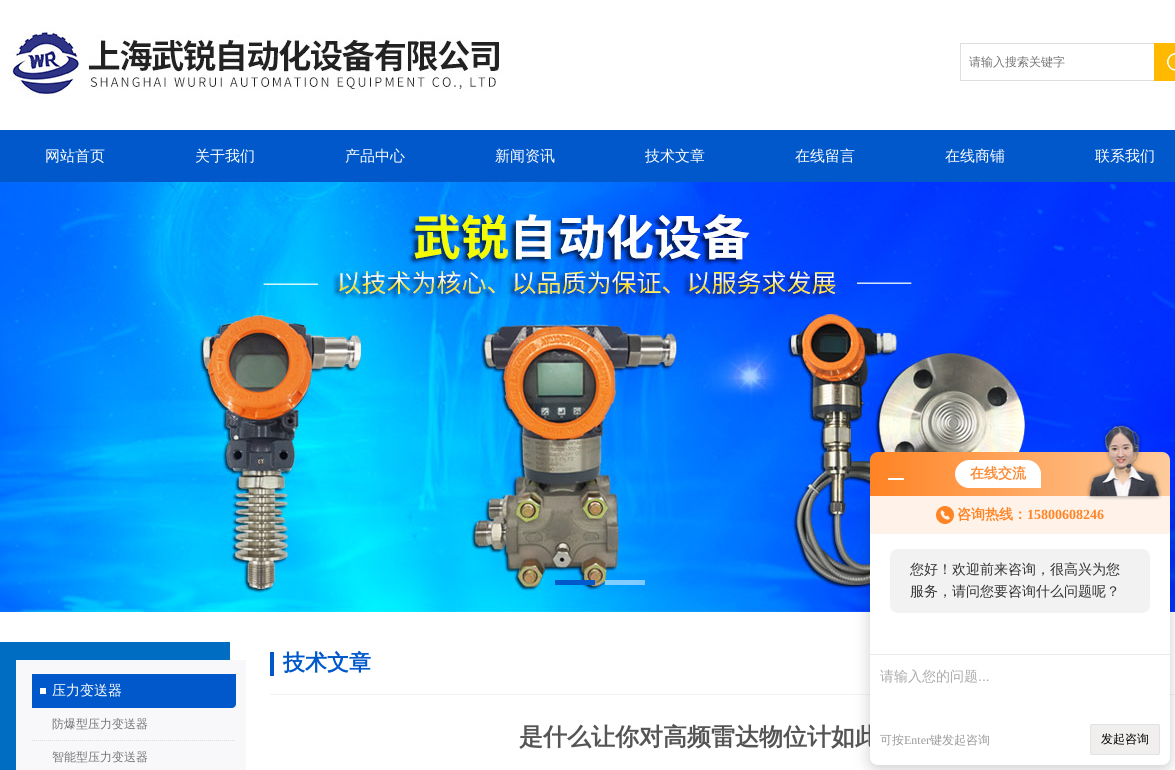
import math
import cairo



def rounded_rect(context, x, y, w, h, r):
    context.new_sub_path()
    for i, (u, v) in enumerate([(x + w - r, y + h - r), (x + r, y + h - r), (x + r, y + r), (x + w - r, y + r)]):
        context.arc(u, v, r, i * math.pi / 2, (i + 1) * math.pi / 2)
    context.close_path()


def draw_shadow(context, x, y, w, h, r, blur, alpha):
    context.push_group_with_content(cairo.Content.ALPHA)
    context.set_operator(cairo.Operator.SOURCE)
    for i in range(15, -16, -2):
        e = blur * i / 6
        if min(w, h) + 2 * e > 0:
            context.set_source_rgba(0, 0, 0, alpha * math.erfc((i - 1) / 8.5) / 2)
            rounded_rect(context, x - e, y - e, w + 2 * e, h + 2 * e, max(0, min(r + e + blur * .6, min(w, h) / 2 + e)))
            context.fill()
    context.mask(context.pop_group())


def draw_image(context, path, x, y, w, h):
    context.save()
    context.set_source_surface(cairo.ImageSurface.create_from_png(path), x, y)
    context.rectangle(x, y, w, h)
    context.fill()
    context.restore()


def draw(context):
    context.set_source_rgb(1, 1, 1)
    context.paint()
    draw_image(context, "images/1.png", 8, 26, 495, 72)
    context.rectangle(960.5, 43.5, 194, 37)
    context.set_source_rgb(222 / 255, 222 / 255, 222 / 255)
    context.set_line_width(1)
    context.stroke()
    context.set_source_rgb(1, 185 / 255, 0)
    context.rectangle(1154, 43, 21, 38)
    context.fill()
    draw_image(context, "images/2.png", 1163, 53, 12, 20)
    context.set_source_rgb(0, 88 / 255, 203 / 255)
    context.rectangle(0, 130, 1175, 52)
    context.fill()
    draw_image(context, "images/3.png", 0, 182, 1175, 430)
    context.rectangle(555, 580, 40, 5)
    context.fill()
    context.set_source_rgba(1, 1, 1, 0.5)
    context.rectangle(605, 580, 40, 5)
    context.fill()
    draw_image(context, "images/4.png", 0, 642, 246, 128)
    draw_image(context, "images/5.png", 16, 642, 230, 24)
    context.set_source_rgb(0, 88 / 255, 203 / 255)
    context.new_path()
    context.move_to(32, 674)
    context.line_to(236, 674)
    context.line_to(236, 704)
    context.curve_to(236, 706, 234, 708, 232, 708)
    context.line_to(32, 708)
    context.close_path()
    context.fill()
    context.set_source_rgb(1, 1, 1)
    context.rectangle(40, 688, 6, 6)
    context.fill()
    context.new_path()
    context.move_to(32, 740.5)
    context.line_to(236, 740.5)
    context.set_source_rgb(222 / 255, 222 / 255, 222 / 255)
    context.set_dash([1, 1])
    context.stroke()
    context.set_source_rgb(241 / 255, 241 / 255, 241 / 255)
    context.rectangle(270, 694, 905, 1)
    context.fill()
    context.set_source_rgb(0, 88 / 255, 203 / 255)
    context.rectangle(270, 652, 4, 24)
    context.fill()
    context.set_source_rgb(0, 0, 0)
    draw_shadow(context, 870, 500, 300, 269, 8, 8, 0.2)
    gradient = cairo.LinearGradient(870, 474, 1170, 474)
    gradient.add_color_stop_rgba(0, 1, 131 / 255, 36 / 255, 1)
    gradient.add_color_stop_rgba(1, 254 / 255, 203 / 255, 156 / 255, 1)
    context.set_source(gradient)
    context.new_path()
    context.move_to(878, 452)
    context.line_to(1162, 452)
    context.curve_to(1166.5, 452, 1170, 455.5, 1170, 460)
    context.line_to(1170, 496)
    context.line_to(870, 496)
    context.line_to(870, 460)
    context.curve_to(870, 455.5, 873.5, 452, 878, 452)
    context.close_path()
    context.fill()
    context.set_source_rgb(1, 1, 1)
    context.rectangle(888, 478, 16, 2)
    context.fill()
    context.new_path()
    context.move_to(969, 460)
    context.line_to(1027, 460)
    context.curve_to(1034.5, 460, 1041, 466.5, 1041, 474)
    context.line_to(1041, 488)
    context.line_to(969, 488)
    context.curve_to(961.5, 488, 955, 481.5, 955, 474)
    context.curve_to(955, 466.5, 961.5, 460, 969, 460)
    context.close_path()
    context.fill()
    context.select_font_face("WenQuanYi Zen Hei Medium")
    context.set_font_size(12)
    context.set_source_rgb(117 / 255, 117 / 255, 117 / 255)
    context.move_to(969, 66)
    context.show_text("请输入搜索关键字")
    context.set_font_size(15)
    context.set_source_rgb(1, 1, 1)
    context.move_to(45, 161)
    context.show_text("网站首页")
    context.move_to(195, 161)
    context.show_text("关于我们")
    context.move_to(345, 161)
    context.show_text("产品中心")
    context.move_to(495, 161)
    context.show_text("新闻资讯")
    context.move_to(645, 161)
    context.show_text("技术文章")
    context.move_to(795, 161)
    context.show_text("在线留言")
    context.move_to(945, 161)
    context.show_text("在线商铺")
    context.move_to(1095, 161)
    context.show_text("联系我们")
    context.set_font_size(14)
    context.move_to(52, 695)
    context.show_text("压力变送器")
    context.set_font_size(12)
    context.set_source_rgb(117 / 255, 117 / 255, 117 / 255)
    context.move_to(52, 728)
    context.show_text("防爆型压力变送器")
    context.move_to(52, 761)
    context.show_text("智能型压力变送器")
    context.select_font_face("WenQuanYi Zen Hei", cairo.FontSlant.NORMAL, cairo.FontWeight.BOLD)
    context.set_font_size(22)
    context.set_source_rgb(0, 88 / 255, 203 / 255)
    context.move_to(283, 670)
    context.show_text("技术文章")
    context.set_font_size(24)
    context.set_source_rgb(85 / 255, 85 / 255, 85 / 255)
    context.move_to(519, 745)
    context.show_text("是什么让你对高频雷达物位计如此")
    context.set_font_size(14)
    context.set_source_rgb(251 / 255, 139 / 255, 54 / 255)
    context.move_to(970, 478)
    context.show_text("在线交流")
    context.set_source_rgb(1, 1, 1)
    context.new_path()
    context.move_to(870, 496)
    context.line_to(1170, 496)
    context.line_to(1170, 757)
    context.curve_to(1170, 761.5, 1166.5, 765, 1162, 765)
    context.line_to(878, 765)
    context.curve_to(873.5, 765, 870, 761.5, 870, 757)
    context.close_path()
    context.fill()
    context.set_source_rgb(1, 243 / 255, 233 / 255)
    context.rectangle(870, 496, 300, 38)
    context.fill()
    draw_image(context, "images/6.png", 1086, 422, 76, 78)
    draw_image(context, "images/7.png", 936, 506, 18, 18)
    context.set_source_rgb(1, 132 / 255, 38 / 255)
    context.move_to(957, 519)
    context.show_text("咨询热线：")
    context.select_font_face("Liberation Serif", cairo.FontSlant.NORMAL, cairo.FontWeight.BOLD)
    context.move_to(1027, 519)
    context.show_text("15800608246")
    context.set_source_rgb(242 / 255, 242 / 255, 242 / 255)
    rounded_rect(context, 890, 549, 260, 64, 8)
    context.fill()
    context.select_font_face("WenQuanYi Zen Hei Medium")
    context.set_source_rgb(51 / 255, 51 / 255, 51 / 255)
    context.move_to(910, 574)
    context.show_text("您好！欢迎前来咨询，很高兴为您")
    context.move_to(910, 596)
    context.show_text("服务，请问您要咨询什么问题呢？")
    context.set_source_rgb(234 / 255, 234 / 255, 234 / 255)
    context.rectangle(870, 654, 300, 1)
    context.fill()
    context.set_source_rgb(170 / 255, 170 / 255, 170 / 255)
    context.move_to(880, 681)
    context.show_text("请输入您的问题")
    context.select_font_face("Liberation Sans")
    context.move_to(978, 681)
    context.show_text("...")
    context.select_font_face("WenQuanYi Zen Hei Medium")
    context.set_font_size(12)
    context.set_source_rgb(153 / 255, 153 / 255, 153 / 255)
    context.move_to(880, 744)
    context.show_text("可按")
    context.select_font_face("Liberation Serif")
    context.move_to(904, 744)
    context.show_text("Enter")
    context.select_font_face("WenQuanYi Zen Hei Medium")
    context.move_to(930, 744)
    context.show_text("键发起咨询")
    context.set_source_rgb(240 / 255, 239 / 255, 237 / 255)
    rounded_rect(context, 1090.5, 724.5, 69, 30, 1.5)
    context.fill_preserve()
    context.set_source_rgb(226 / 255, 226 / 255, 226 / 255)
    context.set_dash([])
    context.stroke()
    context.set_source_rgb(0, 0, 0)
    context.move_to(1101, 743)
    context.show_text("发起咨询")


surface = cairo.ImageSurface(cairo.Format.RGB24, 1175, 770)
context = cairo.Context(surface)
options = cairo.FontOptions()
options.set_hint_metrics(cairo.HintMetrics.OFF)
options.set_hint_style(cairo.HintStyle.NONE)
context.set_font_options(options)
context.set_miter_limit(4)
draw(context)
surface.write_to_png("out.png")
